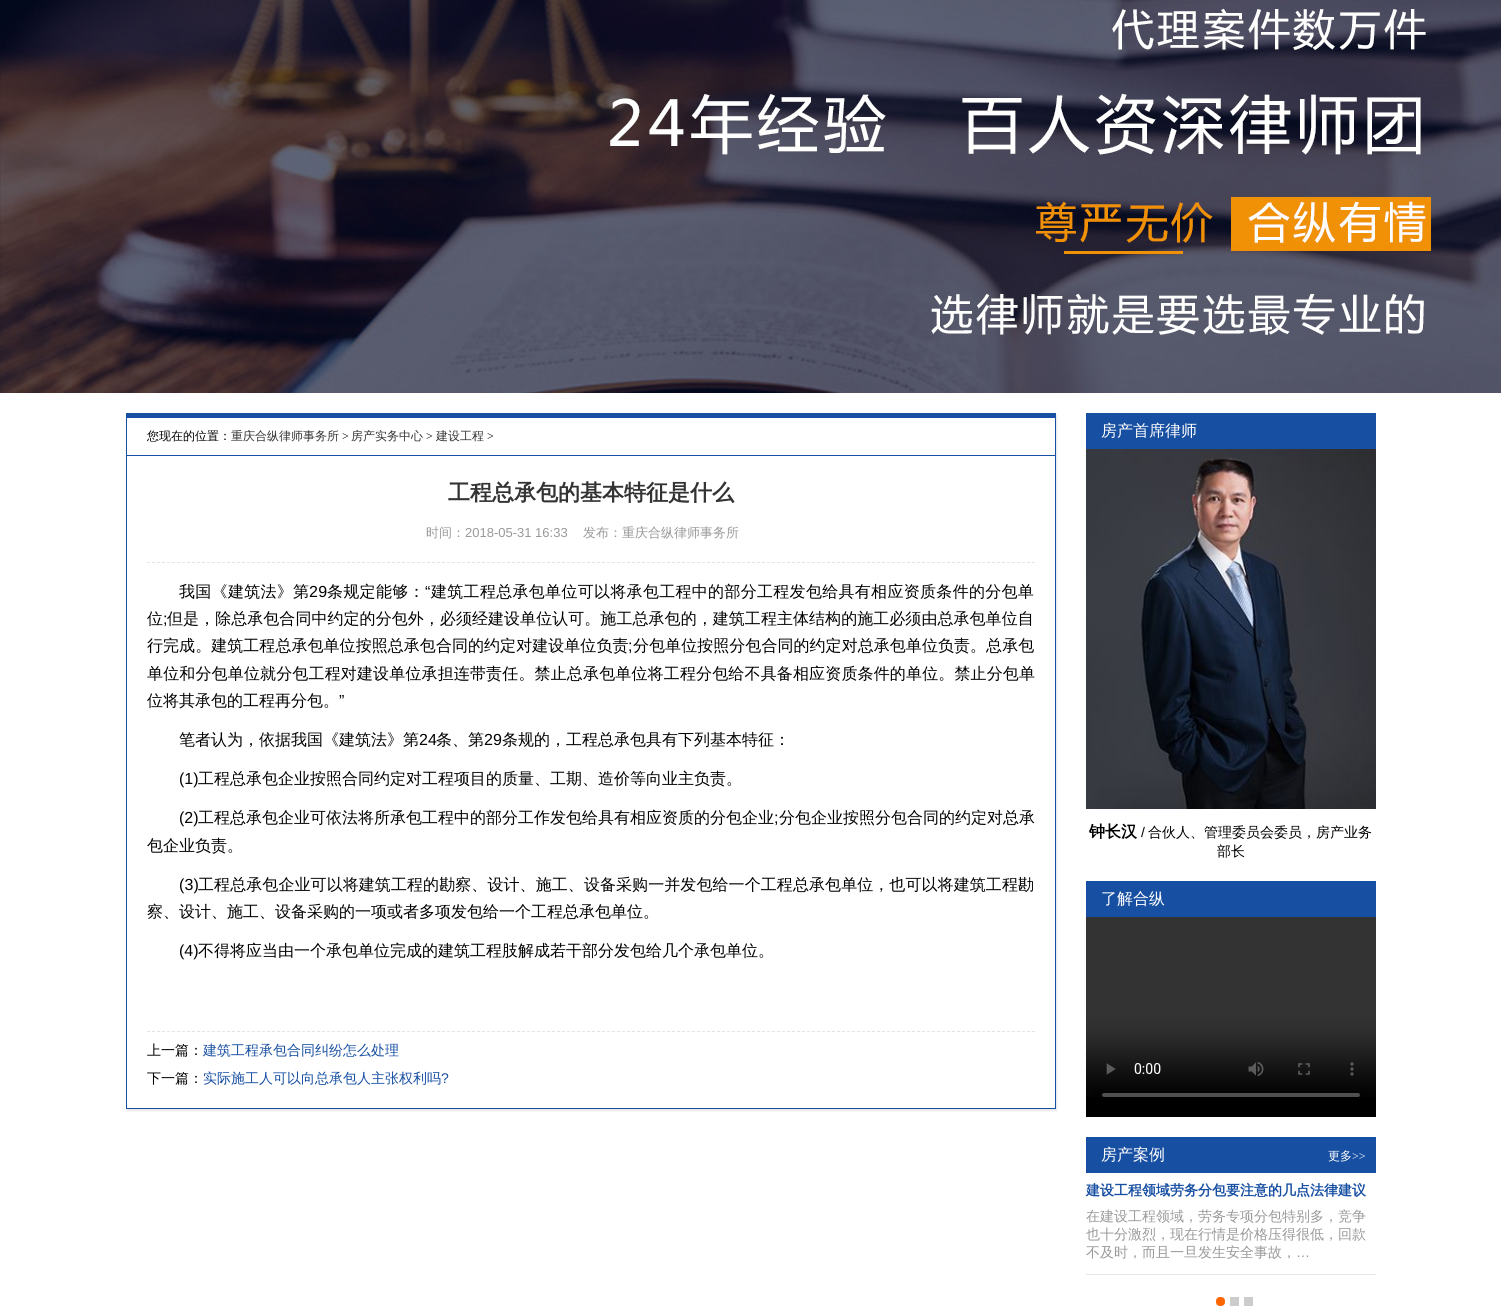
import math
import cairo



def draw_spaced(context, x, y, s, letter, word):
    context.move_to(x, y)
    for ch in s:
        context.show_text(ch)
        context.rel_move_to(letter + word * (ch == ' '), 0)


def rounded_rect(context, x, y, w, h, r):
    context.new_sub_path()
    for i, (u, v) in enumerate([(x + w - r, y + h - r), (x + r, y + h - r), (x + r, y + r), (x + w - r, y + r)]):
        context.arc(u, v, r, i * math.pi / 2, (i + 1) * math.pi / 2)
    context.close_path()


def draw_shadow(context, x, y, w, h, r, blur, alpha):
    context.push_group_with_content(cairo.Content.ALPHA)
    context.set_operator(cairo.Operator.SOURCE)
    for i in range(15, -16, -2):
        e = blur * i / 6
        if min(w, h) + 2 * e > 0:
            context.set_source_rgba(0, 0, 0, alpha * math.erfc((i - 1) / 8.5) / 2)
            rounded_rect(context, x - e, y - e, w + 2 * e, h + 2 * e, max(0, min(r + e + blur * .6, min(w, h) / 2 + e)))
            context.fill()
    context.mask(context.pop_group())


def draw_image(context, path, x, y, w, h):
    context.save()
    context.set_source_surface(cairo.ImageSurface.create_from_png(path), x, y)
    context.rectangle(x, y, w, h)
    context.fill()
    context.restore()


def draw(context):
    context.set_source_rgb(1, 1, 1)
    context.paint()
    draw_image(context, "images/1.png", 0, 0, 1501, 393)
    context.save()
    context.set_fill_rule(cairo.FillRule.EVEN_ODD)
    context.new_path()
    context.move_to(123, 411)
    context.line_to(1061, 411)
    context.line_to(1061, 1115)
    context.line_to(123, 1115)
    context.close_path()
    context.move_to(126, 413)
    context.line_to(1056, 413)
    context.line_to(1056, 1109)
    context.line_to(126, 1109)
    context.close_path()
    context.clip()
    context.set_source_rgb(0, 0, 0)
    draw_shadow(context, 127, 415, 930, 696, 0, 1, 0.1)
    context.restore()
    context.set_source_rgb(23 / 255, 79 / 255, 162 / 255)
    context.rectangle(126, 413, 930, 5)
    context.fill()
    context.rectangle(1055, 413, 1, 696)
    context.fill()
    context.rectangle(126, 1108, 930, 1)
    context.fill()
    context.rectangle(126, 413, 1, 696)
    context.fill()
    context.rectangle(127, 455, 928, 1)
    context.fill()
    context.new_path()
    context.move_to(147, 562.5)
    context.line_to(1035, 562.5)
    context.set_source_rgb(226 / 255, 227 / 255, 228 / 255)
    context.set_line_width(1)
    context.set_dash([3, 2])
    context.stroke()
    context.new_path()
    context.move_to(147, 1031.5)
    context.line_to(1035, 1031.5)
    context.stroke()
    context.set_source_rgb(23 / 255, 79 / 255, 162 / 255)
    context.rectangle(1086, 413, 290, 36)
    context.fill()
    draw_image(context, "images/2.png", 1086, 449, 290, 360)
    context.rectangle(1086, 881, 290, 36)
    context.fill()
    context.set_source_rgb(0, 0, 0)
    context.rectangle(1086, 1097, 290, 20)
    context.fill()
    draw_image(context, "images/3.png", 1086, 917, 290, 180)
    context.set_source_rgb(23 / 255, 79 / 255, 162 / 255)
    context.rectangle(1086, 1137, 290, 36)
    context.fill()
    context.set_source_rgb(231 / 255, 231 / 255, 231 / 255)
    context.rectangle(1086, 1274, 290, 1)
    context.fill()
    draw_image(context, "images/4.png", 1216, 1297, 9, 9)
    context.set_source_rgb(204 / 255, 204 / 255, 204 / 255)
    context.rectangle(1230, 1297, 9, 9)
    context.fill()
    context.rectangle(1244, 1297, 9, 9)
    context.fill()
    context.select_font_face("WenQuanYi Zen Hei Medium")
    context.set_font_size(12)
    context.set_source_rgb(0, 0, 0)
    context.move_to(147, 440)
    context.show_text("您现在的位置：")
    context.set_source_rgb(51 / 255, 51 / 255, 51 / 255)
    context.move_to(231, 440)
    context.show_text("重庆合纵律师事务所")
    context.select_font_face("Liberation Serif")
    context.set_source_rgb(0, 0, 0)
    context.move_to(342, 440)
    context.show_text(">")
    context.select_font_face("WenQuanYi Zen Hei Medium")
    context.set_source_rgb(51 / 255, 51 / 255, 51 / 255)
    context.move_to(351, 440)
    context.show_text("房产实务中心")
    context.select_font_face("Liberation Serif")
    context.set_source_rgb(0, 0, 0)
    context.move_to(426, 440)
    context.show_text(">")
    context.select_font_face("WenQuanYi Zen Hei Medium")
    context.set_source_rgb(51 / 255, 51 / 255, 51 / 255)
    context.move_to(436, 440)
    context.show_text("建设工程")
    context.select_font_face("Liberation Serif")
    context.set_source_rgb(0, 0, 0)
    context.move_to(487, 440)
    context.show_text(">")
    context.select_font_face("WenQuanYi Zen Hei", cairo.FontSlant.NORMAL, cairo.FontWeight.BOLD)
    context.set_font_size(22)
    context.set_source_rgb(51 / 255, 51 / 255, 51 / 255)
    context.move_to(448, 500)
    context.show_text("工程总承包的基本特征是什么")
    context.select_font_face("WenQuanYi Zen Hei Medium")
    context.set_font_size(13)
    context.set_source_rgb(153 / 255, 153 / 255, 153 / 255)
    context.move_to(426, 537)
    context.show_text("时间：")
    context.select_font_face("Liberation Sans")
    context.move_to(465, 537)
    context.show_text("2018-05-31 16:33")
    context.select_font_face("WenQuanYi Zen Hei Medium")
    context.move_to(583, 537)
    context.show_text("发布：重庆合纵律师事务所")
    context.set_font_size(16)
    context.set_source_rgb(0, 0, 0)
    draw_spaced(context, 179, 597, "我国《建筑法》第", 0.3, 0)
    context.select_font_face("Liberation Sans")
    draw_spaced(context, 309, 597, "29", 0.3, 0)
    context.select_font_face("WenQuanYi Zen Hei Medium")
    draw_spaced(context, 327, 597, "条规定能够：", 0.3, 0)
    context.select_font_face("Liberation Sans")
    draw_spaced(context, 425, 597, "“", 0.3, 0)
    context.select_font_face("WenQuanYi Zen Hei Medium")
    draw_spaced(context, 431, 597, "建筑工程总承包单位可以将承包工程中的部分工程发包给具有相应资质条件的分包单", 0.3, 0)
    draw_spaced(context, 147, 624, "位", 0.05, 0)
    context.select_font_face("Liberation Sans")
    draw_spaced(context, 163, 624, ";", 0.05, 0)
    context.select_font_face("WenQuanYi Zen Hei Medium")
    draw_spaced(context, 167, 624, "但是，除总承包合同中约定的分包外，必须经建设单位认可。施工总承包的，建筑工程主体结构的施工必须由总承包单位自", 0.05, 0)
    draw_spaced(context, 147, 651, "行完成。建筑工程总承包单位按照总承包合同的约定对建设单位负责", 0.05, 0)
    context.select_font_face("Liberation Sans")
    draw_spaced(context, 628, 651, ";", 0.05, 0)
    context.select_font_face("WenQuanYi Zen Hei Medium")
    draw_spaced(context, 633, 651, "分包单位按照分包合同的约定对总承包单位负责。总承包", 0.05, 0)
    draw_spaced(context, 147, 679, "单位和分包单位就分包工程对建设单位承担连带责任。禁止总承包单位将工程分包给不具备相应资质条件的单位。禁止分包单", 0.15, 0)
    context.move_to(147, 706)
    context.show_text("位将其承包的工程再分包。")
    context.select_font_face("Liberation Sans")
    context.move_to(339, 706)
    context.show_text("”")
    context.select_font_face("WenQuanYi Zen Hei Medium")
    context.move_to(179, 745)
    context.show_text("笔者认为，依据我国《建筑法》第")
    context.select_font_face("Liberation Sans")
    context.move_to(419, 745)
    context.show_text("24")
    context.select_font_face("WenQuanYi Zen Hei Medium")
    context.move_to(436, 745)
    context.show_text("条、第")
    context.select_font_face("Liberation Sans")
    context.move_to(484, 745)
    context.show_text("29")
    context.select_font_face("WenQuanYi Zen Hei Medium")
    context.move_to(502, 745)
    context.show_text("条规的，工程总承包具有下列基本特征：")
    context.select_font_face("Liberation Sans")
    context.move_to(179, 784)
    context.show_text("(1)")
    context.select_font_face("WenQuanYi Zen Hei Medium")
    context.move_to(198, 784)
    context.show_text("工程总承包企业按照合同约定对工程项目的质量、工期、造价等向业主负责。")
    context.select_font_face("Liberation Sans")
    context.move_to(179, 823)
    context.show_text("(2)")
    context.select_font_face("WenQuanYi Zen Hei Medium")
    context.move_to(198, 823)
    context.show_text("工程总承包企业可依法将所承包工程中的部分工作发包给具有相应资质的分包企业")
    context.select_font_face("Liberation Sans")
    context.move_to(774, 823)
    context.show_text(";")
    context.select_font_face("WenQuanYi Zen Hei Medium")
    context.move_to(779, 823)
    context.show_text("分包企业按照分包合同的约定对总承")
    context.move_to(147, 851)
    context.show_text("包企业负责。")
    context.select_font_face("Liberation Sans")
    draw_spaced(context, 179, 890, "(3)", 0.08, 0)
    context.select_font_face("WenQuanYi Zen Hei Medium")
    draw_spaced(context, 198, 890, "工程总承包企业可以将建筑工程的勘察、设计、施工、设备采购一并发包给一个工程总承包单位，也可以将建筑工程勘", 0.08, 0)
    context.move_to(147, 917)
    context.show_text("察、设计、施工、设备采购的一项或者多项发包给一个工程总承包单位。")
    context.select_font_face("Liberation Sans")
    context.move_to(179, 956)
    context.show_text("(4)")
    context.select_font_face("WenQuanYi Zen Hei Medium")
    context.move_to(198, 956)
    context.show_text("不得将应当由一个承包单位完成的建筑工程肢解成若干部分发包给几个承包单位。")
    context.set_font_size(14)
    context.move_to(147, 1055)
    context.show_text("上一篇：")
    context.set_source_rgb(23 / 255, 79 / 255, 162 / 255)
    context.move_to(203, 1055)
    context.show_text("建筑工程承包合同纠纷怎么处理")
    context.set_source_rgb(0, 0, 0)
    context.move_to(147, 1083)
    context.show_text("下一篇：")
    context.set_source_rgb(23 / 255, 79 / 255, 162 / 255)
    context.move_to(203, 1083)
    context.show_text("实际施工人可以向总承包人主张权利吗")
    context.select_font_face("Liberation Sans")
    context.move_to(441, 1083)
    context.show_text("?")
    context.select_font_face("WenQuanYi Zen Hei Medium")
    context.set_font_size(16)
    context.set_source_rgb(1, 1, 1)
    context.move_to(1101, 436)
    context.show_text("房产首席律师")
    context.select_font_face("WenQuanYi Zen Hei", cairo.FontSlant.NORMAL, cairo.FontWeight.BOLD)
    context.set_source_rgb(0, 0, 0)
    context.move_to(1089, 837)
    context.show_text("钟长汉")
    context.select_font_face("Liberation Sans")
    context.set_font_size(14)
    context.move_to(1141, 837)
    context.show_text("/")
    context.select_font_face("WenQuanYi Zen Hei Medium")
    context.move_to(1148, 837)
    context.show_text("合伙人、管理委员会委员，房产业务")
    context.move_to(1217, 856)
    context.show_text("部长")
    context.set_font_size(16)
    context.set_source_rgb(1, 1, 1)
    context.move_to(1101, 904)
    context.show_text("了解合纵")
    context.move_to(1101, 1160)
    context.show_text("房产案例")
    context.set_font_size(12)
    context.move_to(1328, 1160)
    context.show_text("更多")
    context.select_font_face("Liberation Serif")
    context.move_to(1352, 1160)
    context.show_text(">>")
    context.select_font_face("WenQuanYi Zen Hei", cairo.FontSlant.NORMAL, cairo.FontWeight.BOLD)
    context.set_font_size(14)
    context.set_source_rgb(23 / 255, 79 / 255, 162 / 255)
    context.move_to(1086, 1195)
    context.show_text("建设工程领域劳务分包要注意的几点法律建议")
    context.select_font_face("WenQuanYi Zen Hei Medium")
    context.set_source_rgb(153 / 255, 153 / 255, 153 / 255)
    context.move_to(1086, 1221)
    context.show_text("在建设工程领域，劳务专项分包特别多，竞争")
    context.move_to(1086, 1239)
    context.show_text("也十分激烈，现在行情是价格压得很低，回款")
    context.move_to(1086, 1257)
    context.show_text("不及时，而且一旦发生安全事故，")
    context.select_font_face("Liberation Sans")
    context.move_to(1296, 1257)
    context.show_text("…")


surface = cairo.ImageSurface(cairo.Format.RGB24, 1501, 1310)
context = cairo.Context(surface)
options = cairo.FontOptions()
options.set_hint_metrics(cairo.HintMetrics.OFF)
options.set_hint_style(cairo.HintStyle.NONE)
context.set_font_options(options)
context.set_miter_limit(4)
draw(context)
surface.write_to_png("out.png")
